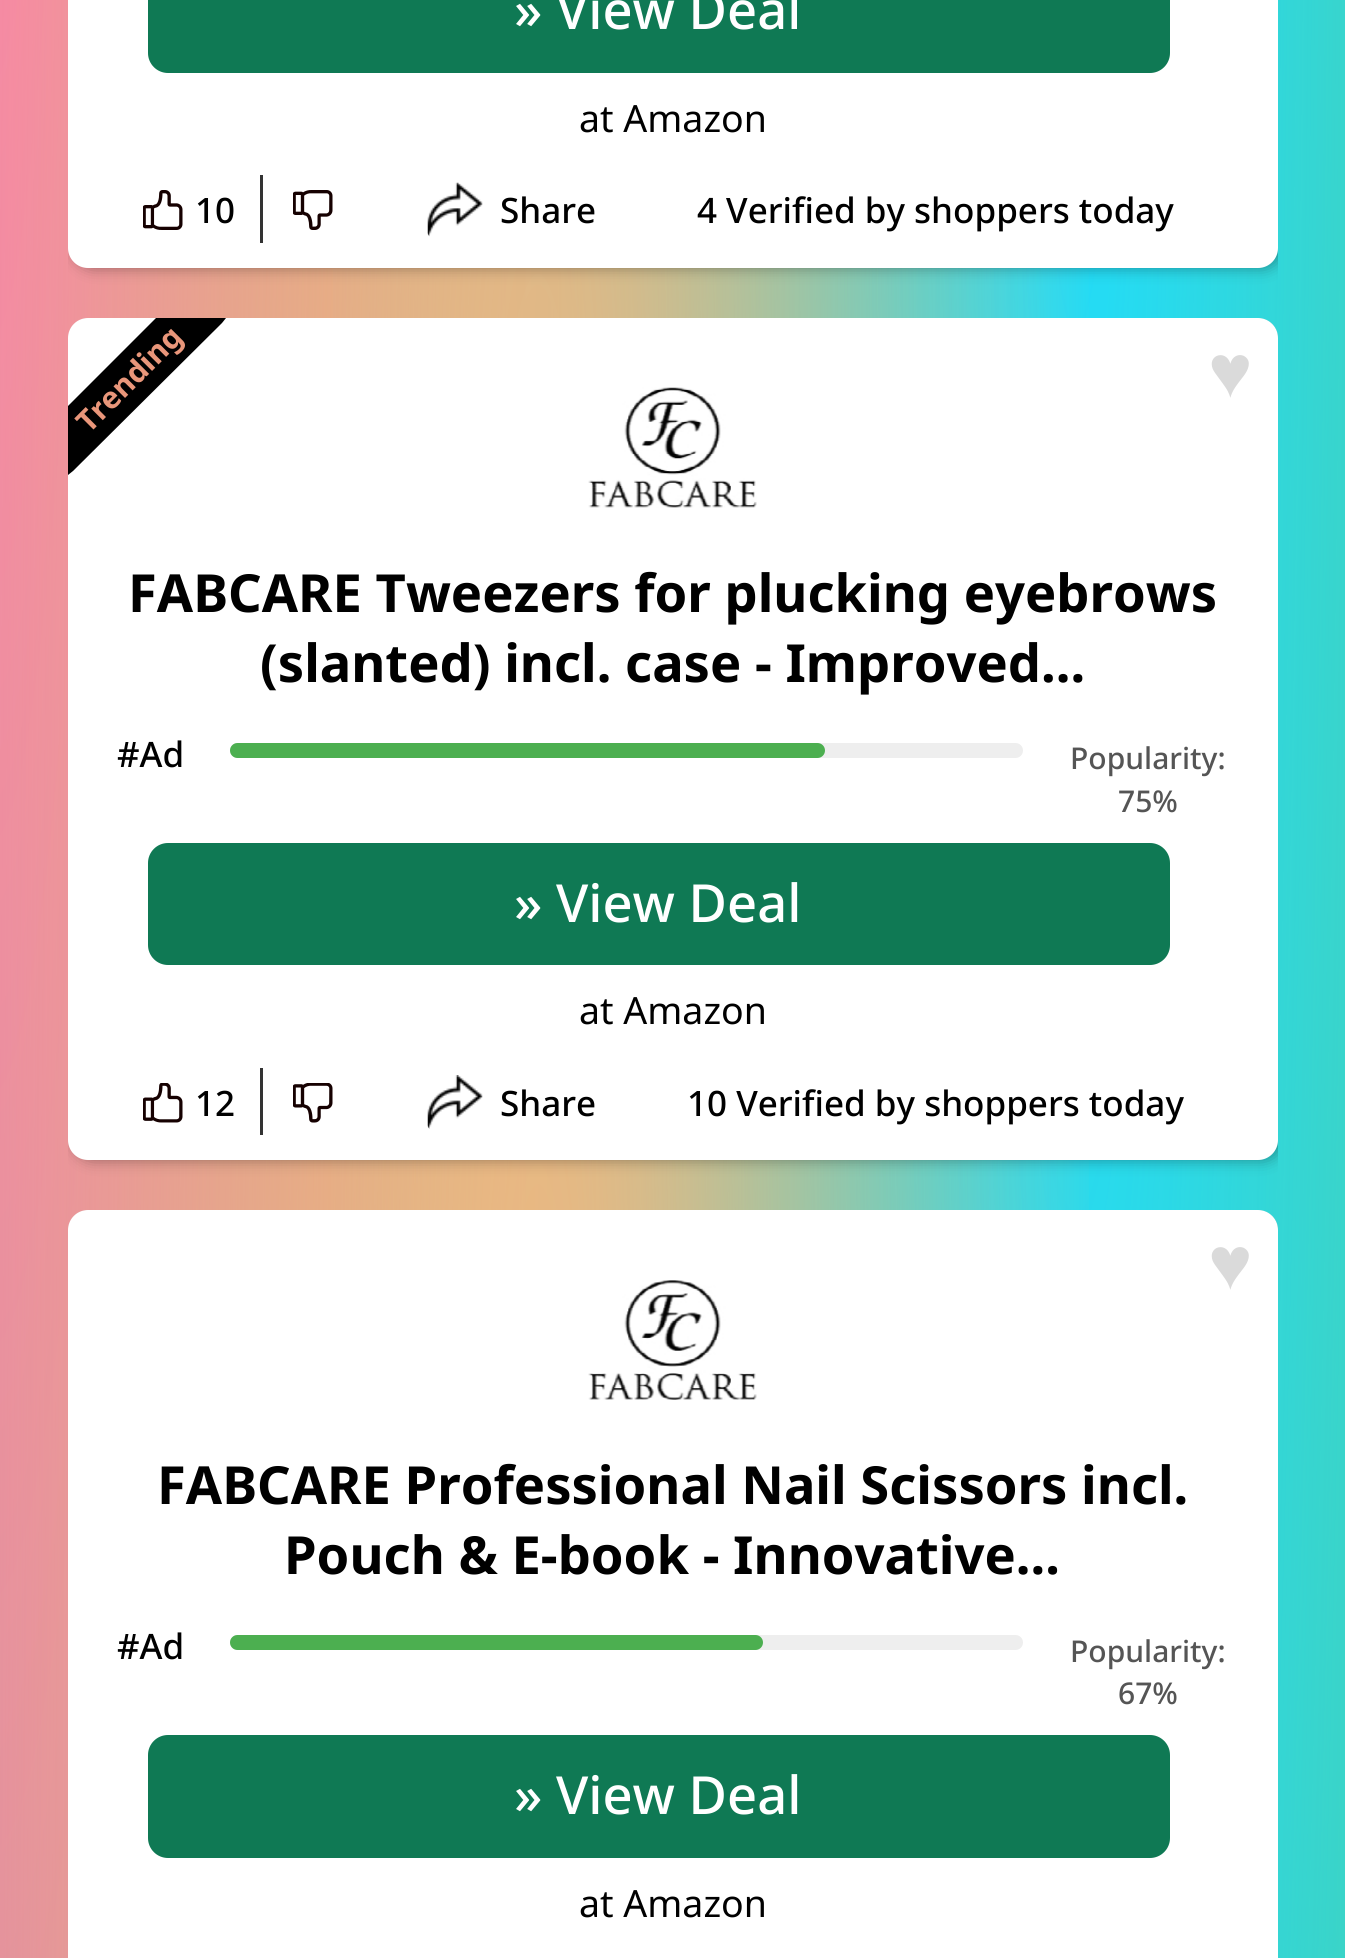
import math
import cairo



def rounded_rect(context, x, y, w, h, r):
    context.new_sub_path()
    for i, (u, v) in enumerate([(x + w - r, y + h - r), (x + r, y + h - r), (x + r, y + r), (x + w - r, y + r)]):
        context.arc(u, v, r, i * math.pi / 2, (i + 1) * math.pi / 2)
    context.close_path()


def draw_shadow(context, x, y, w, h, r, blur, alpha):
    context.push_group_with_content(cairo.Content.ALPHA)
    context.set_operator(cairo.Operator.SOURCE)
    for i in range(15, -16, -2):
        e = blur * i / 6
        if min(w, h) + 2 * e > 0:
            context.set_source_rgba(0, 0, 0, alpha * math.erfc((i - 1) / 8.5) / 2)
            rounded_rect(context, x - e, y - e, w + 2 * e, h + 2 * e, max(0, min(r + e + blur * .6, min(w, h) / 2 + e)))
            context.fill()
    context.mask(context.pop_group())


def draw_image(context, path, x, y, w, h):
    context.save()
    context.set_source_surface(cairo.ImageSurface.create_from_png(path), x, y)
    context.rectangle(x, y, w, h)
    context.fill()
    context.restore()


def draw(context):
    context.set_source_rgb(1, 1, 1)
    context.paint()
    gradient = cairo.RadialGradient(0, 0, 0, 0, 0, 1)
    gradient.set_matrix(cairo.Matrix(1 / 1902, 0, 0, 1 / 37339, -1 * 0 / 1902, -1 * -1332 / 37339))
    gradient.add_color_stop_rgba(0, 1, 133 / 255, 167 / 255, 1)
    gradient.add_color_stop_rgba(0.5, 100 / 255, 198 / 255, 117 / 255, 1)
    context.set_source(gradient)
    context.rectangle(0, 0, 1345, 1958)
    context.fill()
    gradient = cairo.RadialGradient(0, 0, 0, 0, 0, 1)
    gradient.set_matrix(cairo.Matrix(1 / 1522, 0, 0, 1 / 37339, -1 * 1076 / 1522, -1 * -1332 / 37339))
    gradient.add_color_stop_rgba(0, 31 / 255, 221 / 255, 1, 1)
    gradient.add_color_stop_rgba(0.5, 31 / 255, 221 / 255, 1, 0)
    context.set_source(gradient)
    context.rectangle(333, 0, 1012, 1958)
    context.fill()
    gradient = cairo.RadialGradient(0, 0, 0, 0, 0, 1)
    gradient.set_matrix(cairo.Matrix(1 / 1141, 0, 0, 1 / 29871, -1 * 538 / 1141, -1 * 3948 / 29871))
    gradient.add_color_stop_rgba(0, 1, 184 / 255, 122 / 255, 1)
    gradient.add_color_stop_rgba(0.5, 1, 184 / 255, 122 / 255, 0)
    context.set_source(gradient)
    context.rectangle(0, 0, 1089, 1958)
    context.fill()
    context.save()
    rounded_rect(context, 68, -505, 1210, 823, 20)
    context.clip()
    context.set_source_rgb(0, 0, 0)
    draw_shadow(context, 73, -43, 1210, 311, 20, 7.5, 0.35)
    context.restore()
    context.set_source_rgb(1, 1, 1)
    rounded_rect(context, 68, -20, 1210, 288, 20)
    context.fill()
    context.set_source_rgb(15 / 255, 121 / 255, 84 / 255)
    rounded_rect(context, 148, -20, 1022, 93, 20)
    context.fill()
    context.set_source_rgb(51 / 255, 51 / 255, 51 / 255)
    context.rectangle(260, 175, 3, 68)
    context.fill()
    draw_image(context, "images/1.png", 143, 190, 40, 40)
    draw_image(context, "images/2.png", 293, 190, 40, 40)
    draw_image(context, "images/3.png", 427, 182, 56, 55)
    context.save()
    rounded_rect(context, 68, 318, 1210, 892, 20)
    context.clip()
    context.set_source_rgb(0, 0, 0)
    draw_shadow(context, 73, 318, 1210, 842, 20, 7.5, 0.35)
    context.restore()
    context.set_source_rgb(1, 1, 1)
    rounded_rect(context, 68, 318, 1210, 842, 20)
    context.fill()
    context.set_source_rgb(0, 0, 0)
    context.new_path()
    context.move_to(226, 318)
    context.line_to(222, 323)
    context.line_to(73, 471)
    context.line_to(68, 475)
    context.line_to(68, 406)
    context.line_to(156, 318)
    context.close_path()
    context.fill()
    draw_image(context, "images/4.png", 588, 387, 169, 121)
    context.set_source_rgb(238 / 255, 238 / 255, 238 / 255)
    rounded_rect(context, 230, 743, 793, 15, 7.5)
    context.fill()
    context.set_source_rgb(76 / 255, 175 / 255, 80 / 255)
    rounded_rect(context, 230, 743, 595, 15, 7.5)
    context.fill()
    context.set_source_rgb(15 / 255, 121 / 255, 84 / 255)
    rounded_rect(context, 148, 843, 1022, 122, 20)
    context.fill()
    context.set_source_rgb(51 / 255, 51 / 255, 51 / 255)
    context.rectangle(260, 1068, 3, 67)
    context.fill()
    draw_image(context, "images/5.png", 143, 1083, 40, 40)
    draw_image(context, "images/6.png", 293, 1083, 40, 40)
    draw_image(context, "images/7.png", 427, 1075, 56, 54)
    context.save()
    rounded_rect(context, 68, 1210, 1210, 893, 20)
    context.clip()
    context.set_source_rgb(0, 0, 0)
    draw_shadow(context, 73, 1210, 1210, 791, 20, 7.5, 0.35)
    context.restore()
    context.set_source_rgb(1, 1, 1)
    rounded_rect(context, 68, 1210, 1210, 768, 20)
    context.fill()
    draw_image(context, "images/8.png", 588, 1280, 169, 120)
    context.set_source_rgb(238 / 255, 238 / 255, 238 / 255)
    rounded_rect(context, 230, 1635, 793, 15, 7.5)
    context.fill()
    context.set_source_rgb(76 / 255, 175 / 255, 80 / 255)
    rounded_rect(context, 230, 1635, 533, 15, 7.5)
    context.fill()
    context.set_source_rgb(15 / 255, 121 / 255, 84 / 255)
    rounded_rect(context, 148, 1735, 1022, 123, 20)
    context.fill()
    context.select_font_face("Noto Sans Medium")
    context.set_font_size(52.5)
    context.set_source_rgb(1, 1, 1)
    context.move_to(514, 29)
    context.show_text("» View Deal")
    context.select_font_face("Noto Sans")
    context.set_font_size(37.5)
    context.set_source_rgb(0, 0, 0)
    context.move_to(579, 132)
    context.show_text("at Amazon")
    context.select_font_face("Noto Sans Medium")
    context.set_font_size(35)
    context.move_to(195, 223)
    context.show_text("10")
    context.move_to(500, 223)
    context.show_text("Share")
    context.move_to(697, 223)
    context.show_text("4 Verified by shoppers today")
    context.select_font_face("Noto Sans", cairo.FontSlant.NORMAL, cairo.FontWeight.BOLD)
    context.set_font_size(30)
    context.set_source_rgb(233 / 255, 150 / 255, 122 / 255)
    context.save()
    context.translate(89, 434)
    context.rotate(-45 * math.pi / 180)
    context.move_to(0, 0)
    context.show_text("Trending")
    context.restore()
    context.select_font_face("Liberation Sans", cairo.FontSlant.ITALIC)
    context.set_font_size(75)
    context.set_source_rgb(218 / 255, 218 / 255, 218 / 255)
    context.move_to(1208, 397)
    context.show_text("♥")
    context.select_font_face("Noto Sans", cairo.FontSlant.NORMAL, cairo.FontWeight.BOLD)
    context.set_font_size(52.5)
    context.set_source_rgb(0, 0, 0)
    context.move_to(128, 612)
    context.show_text("FABCARE Tweezers for plucking eyebrows")
    context.move_to(260, 682)
    context.show_text("(slanted) incl. case - Improved...")
    context.select_font_face("Noto Sans Medium")
    context.set_font_size(35)
    context.move_to(117, 767)
    context.show_text("#Ad")
    context.set_font_size(30)
    context.set_source_rgb(85 / 255, 85 / 255, 85 / 255)
    context.move_to(1070, 769)
    context.show_text("Popularity:")
    context.move_to(1118, 812)
    context.show_text("75%")
    context.set_font_size(52.5)
    context.set_source_rgb(1, 1, 1)
    context.move_to(514, 922)
    context.show_text("» View Deal")
    context.select_font_face("Noto Sans")
    context.set_font_size(37.5)
    context.set_source_rgb(0, 0, 0)
    context.move_to(579, 1024)
    context.show_text("at Amazon")
    context.select_font_face("Noto Sans Medium")
    context.set_font_size(35)
    context.move_to(195, 1116)
    context.show_text("12")
    context.move_to(500, 1116)
    context.show_text("Share")
    context.move_to(687, 1116)
    context.show_text("10 Verified by shoppers today")
    context.select_font_face("Liberation Sans", cairo.FontSlant.ITALIC)
    context.set_font_size(75)
    context.set_source_rgb(218 / 255, 218 / 255, 218 / 255)
    context.move_to(1208, 1289)
    context.show_text("♥")
    context.select_font_face("Noto Sans", cairo.FontSlant.NORMAL, cairo.FontWeight.BOLD)
    context.set_font_size(52.5)
    context.set_source_rgb(0, 0, 0)
    context.move_to(157, 1504)
    context.show_text("FABCARE Professional Nail Scissors incl.")
    context.move_to(284, 1574)
    context.show_text("Pouch & E-book - Innovative...")
    context.select_font_face("Noto Sans Medium")
    context.set_font_size(35)
    context.move_to(117, 1659)
    context.show_text("#Ad")
    context.set_font_size(30)
    context.set_source_rgb(85 / 255, 85 / 255, 85 / 255)
    context.move_to(1070, 1662)
    context.show_text("Popularity:")
    context.move_to(1118, 1704)
    context.show_text("67%")
    context.set_font_size(52.5)
    context.set_source_rgb(1, 1, 1)
    context.move_to(514, 1814)
    context.show_text("» View Deal")
    context.select_font_face("Noto Sans")
    context.set_font_size(37.5)
    context.set_source_rgb(0, 0, 0)
    context.move_to(579, 1917)
    context.show_text("at Amazon")


surface = cairo.ImageSurface(cairo.Format.RGB24, 1345, 1958)
context = cairo.Context(surface)
options = cairo.FontOptions()
options.set_hint_metrics(cairo.HintMetrics.OFF)
options.set_hint_style(cairo.HintStyle.NONE)
context.set_font_options(options)
context.set_miter_limit(4)
draw(context)
surface.write_to_png("out.png")
